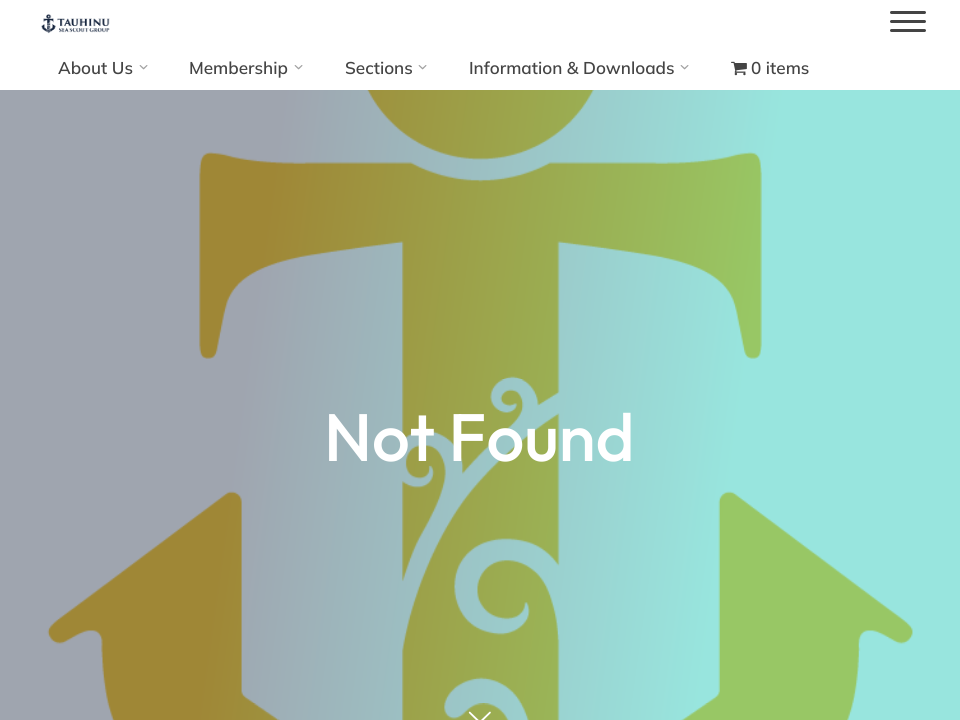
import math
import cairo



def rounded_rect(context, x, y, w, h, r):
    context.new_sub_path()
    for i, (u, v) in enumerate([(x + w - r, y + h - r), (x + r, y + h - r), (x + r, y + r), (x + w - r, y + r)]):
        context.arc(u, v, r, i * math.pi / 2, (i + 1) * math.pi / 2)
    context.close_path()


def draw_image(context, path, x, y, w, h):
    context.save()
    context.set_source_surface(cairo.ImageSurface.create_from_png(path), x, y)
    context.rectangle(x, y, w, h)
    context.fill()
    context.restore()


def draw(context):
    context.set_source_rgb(1, 1, 1)
    context.paint()
    draw_image(context, "images/1.png", 41, 14, 69, 20)
    context.set_source_rgb(68 / 255, 68 / 255, 68 / 255)
    rounded_rect(context, 890, 11, 36, 3, 1.5)
    context.fill()
    rounded_rect(context, 890, 20, 36, 3, 1.5)
    context.fill()
    rounded_rect(context, 890, 29, 36, 3, 1.5)
    context.fill()
    draw_image(context, "images/2.png", 139, 65, 9, 5)
    draw_image(context, "images/2.png", 294, 65, 9, 5)
    draw_image(context, "images/2.png", 418, 65, 9, 5)
    draw_image(context, "images/2.png", 680, 65, 9, 5)
    draw_image(context, "images/3.png", 731, 61, 16, 15)
    draw_image(context, "images/4.png", 47, 90, 866, 630)
    gradient = cairo.LinearGradient(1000, 523, -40, 377)
    gradient.add_color_stop_rgba(0.26, 5 / 255, 193 / 255, 175 / 255, 0.41)
    gradient.add_color_stop_rgba(0.73, 22 / 255, 37 / 255, 62 / 255, 0.41)
    context.set_source(gradient)
    context.rectangle(0, 90, 960, 630)
    context.fill()
    draw_image(context, "images/5.png", 468, 711, 23, 9)
    context.select_font_face("Mulish SemiBold")
    context.set_font_size(17.1)
    context.set_source_rgb(68 / 255, 68 / 255, 68 / 255)
    context.move_to(58, 74)
    context.show_text("About Us")
    context.move_to(189, 74)
    context.show_text("Membership")
    context.move_to(345, 74)
    context.show_text("Sections")
    context.move_to(469, 74)
    context.show_text("Information & Downloads")
    context.move_to(751, 74)
    context.show_text("0 items")
    context.select_font_face("Outfit Medium")
    context.set_font_size(67)
    context.set_source_rgb(1, 1, 1)
    context.move_to(324, 461)
    context.show_text("Not Found")


surface = cairo.ImageSurface(cairo.Format.RGB24, 960, 720)
context = cairo.Context(surface)
options = cairo.FontOptions()
options.set_hint_metrics(cairo.HintMetrics.OFF)
options.set_hint_style(cairo.HintStyle.NONE)
context.set_font_options(options)
context.set_miter_limit(4)
draw(context)
surface.write_to_png("out.png")
